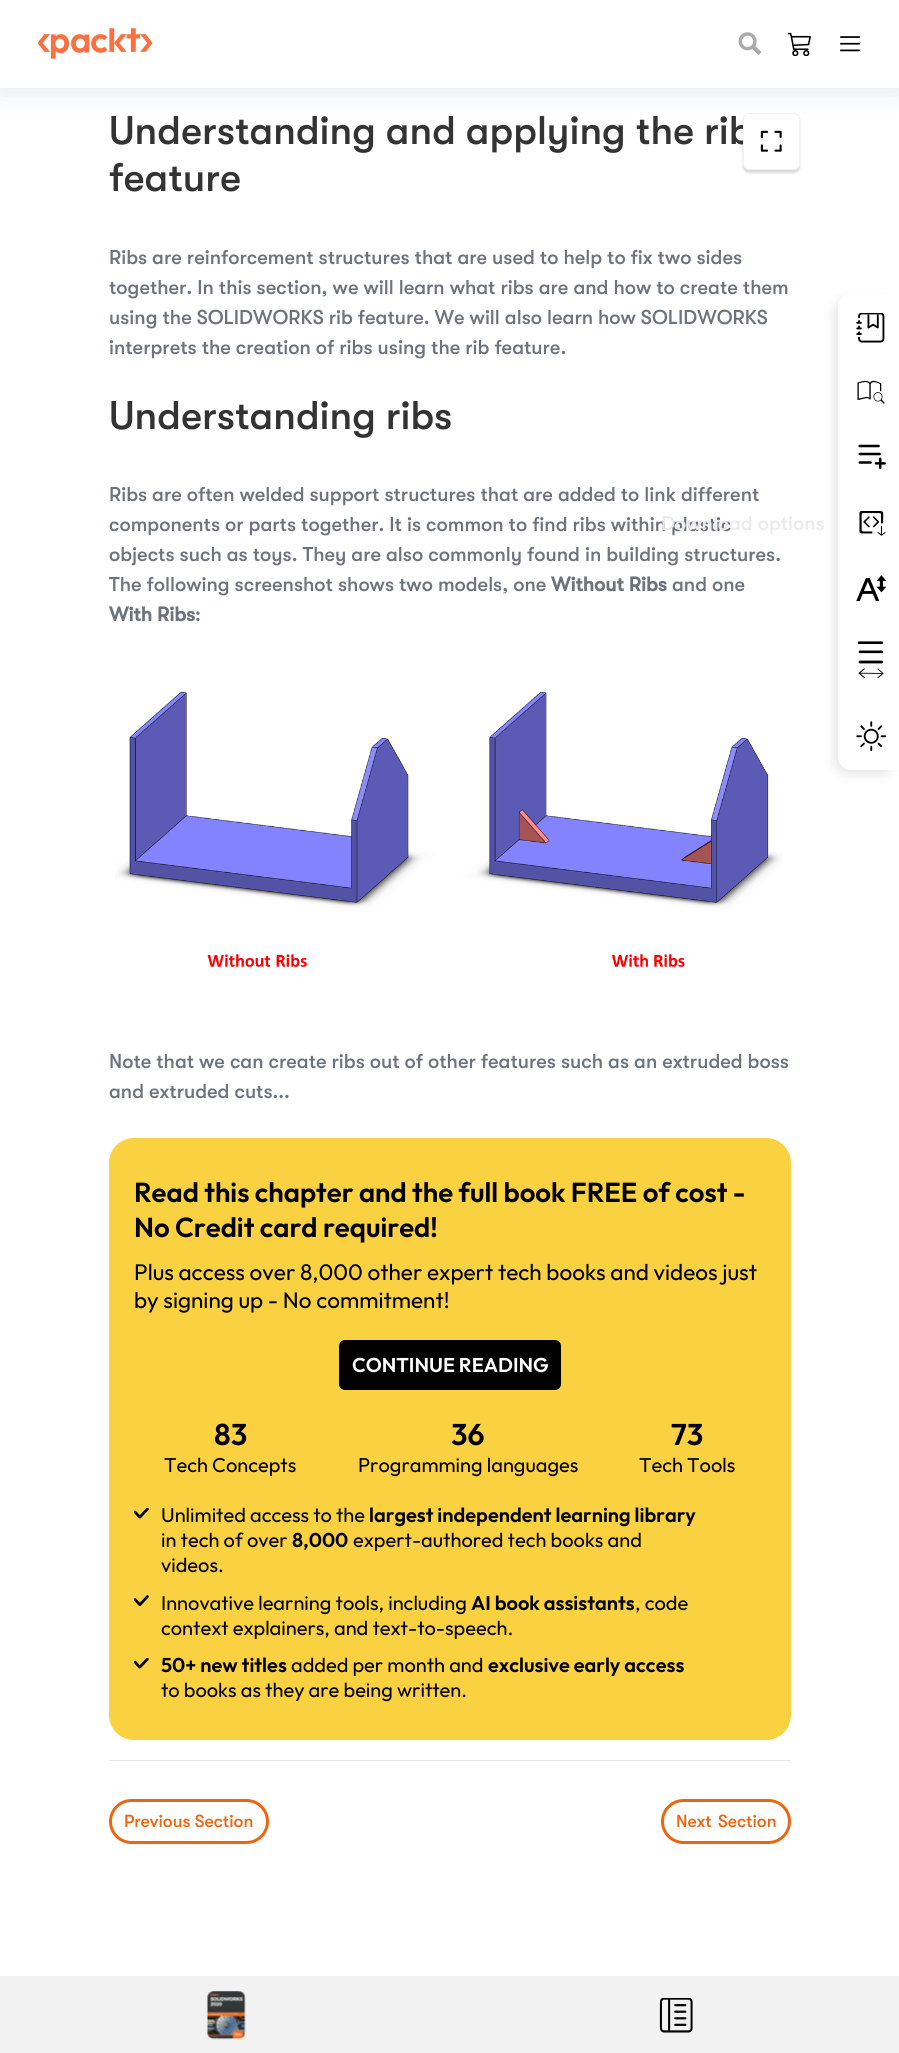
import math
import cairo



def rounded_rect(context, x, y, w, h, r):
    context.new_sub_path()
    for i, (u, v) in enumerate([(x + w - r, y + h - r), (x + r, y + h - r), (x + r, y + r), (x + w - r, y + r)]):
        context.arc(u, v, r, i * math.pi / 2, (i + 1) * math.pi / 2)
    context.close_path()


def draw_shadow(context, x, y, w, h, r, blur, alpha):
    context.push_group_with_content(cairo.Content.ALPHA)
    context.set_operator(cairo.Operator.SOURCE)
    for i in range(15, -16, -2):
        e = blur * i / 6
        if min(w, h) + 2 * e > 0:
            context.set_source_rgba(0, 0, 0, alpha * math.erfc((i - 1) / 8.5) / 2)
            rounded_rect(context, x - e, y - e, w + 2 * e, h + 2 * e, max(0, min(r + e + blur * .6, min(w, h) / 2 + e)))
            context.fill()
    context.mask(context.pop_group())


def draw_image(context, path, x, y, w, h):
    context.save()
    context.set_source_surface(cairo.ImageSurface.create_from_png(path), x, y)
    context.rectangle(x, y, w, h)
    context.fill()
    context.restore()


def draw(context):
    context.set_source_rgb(1, 1, 1)
    context.paint()
    context.set_source_rgb(0, 0, 0)
    draw_shadow(context, 743, 115, 57, 58, 6, 1, 0.15)
    context.set_source_rgb(228 / 255, 231 / 255, 237 / 255)
    context.rectangle(109, 1760, 682, 1)
    context.fill()
    draw_image(context, "images/6.png", 115, 691, 668, 276)
    context.set_source_rgb(249 / 255, 209 / 255, 65 / 255)
    rounded_rect(context, 109, 1138, 682, 602, 25)
    context.fill()
    context.set_source_rgb(0, 0, 0)
    rounded_rect(context, 339, 1340, 222, 50, 6)
    context.fill()
    draw_image(context, "images/7.png", 134, 1508, 15, 11)
    draw_image(context, "images/8.png", 134, 1595, 15, 11)
    draw_image(context, "images/7.png", 134, 1658, 15, 11)
    rounded_rect(context, 110.5, 1800.5, 157, 42, 21)
    context.set_source_rgb(236 / 255, 102 / 255, 17 / 255)
    context.set_line_width(3)
    context.stroke()
    rounded_rect(context, 662.5, 1800.5, 127, 42, 21)
    context.stroke()
    context.set_source_rgb(32 / 255, 32 / 255, 32 / 255)
    draw_shadow(context, 833, 299, 62, 476, 13, 5, 0.1)
    context.set_source_rgb(1, 1, 1)
    context.new_path()
    context.move_to(851, 294)
    context.line_to(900, 294)
    context.line_to(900, 770)
    context.line_to(851, 770)
    context.curve_to(844, 770, 838, 764, 838, 757)
    context.line_to(838, 307)
    context.curve_to(838, 300, 844, 294, 851, 294)
    context.close_path()
    context.fill()
    draw_image(context, "images/9.png", 856, 313, 29, 30)
    draw_image(context, "images/10.png", 857, 380, 28, 24)
    draw_image(context, "images/11.png", 858, 444, 28, 25)
    draw_image(context, "images/12.png", 859, 511, 27, 25)
    draw_image(context, "images/13.png", 856, 575, 30, 26)
    draw_image(context, "images/14.png", 857, 641, 27, 38)
    draw_image(context, "images/15.png", 856, 721, 30, 30)
    context.set_source_rgb(242 / 255, 242 / 255, 242 / 255)
    context.rectangle(0, 1976, 899, 77)
    context.fill()
    draw_image(context, "images/16.png", 207, 1991, 39, 49)
    draw_image(context, "images/17.png", 659, 1998, 34, 35)
    context.select_font_face("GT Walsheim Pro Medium")
    context.set_font_size(40)
    context.set_source_rgb(51 / 255, 51 / 255, 51 / 255)
    context.move_to(109, 144)
    context.show_text("Understanding and applying the rib")
    context.set_source_rgb(1, 1, 1)
    rounded_rect(context, 743.5, 113.5, 56, 56, 5.5)
    context.fill_preserve()
    context.set_source_rgb(242 / 255, 242 / 255, 242 / 255)
    context.set_line_width(1)
    context.stroke()
    context.set_source_rgb(63 / 255, 79 / 255, 110 / 255)
    draw_shadow(context, 0, 4, 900, 87, 0, 12.5, 0.15)
    context.set_source_rgb(1, 1, 1)
    context.rectangle(0, 0, 899, 88)
    context.fill()
    draw_image(context, "images/4.png", 840, 36, 20, 16)
    draw_image(context, "images/3.png", 788, 32, 23, 24)
    draw_image(context, "images/2.png", 738, 32, 24, 23)
    draw_image(context, "images/1.png", 38, 28, 115, 31)
    draw_image(context, "images/5.png", 760, 130, 22, 22)
    context.set_source_rgb(51 / 255, 51 / 255, 51 / 255)
    context.move_to(109, 191)
    context.show_text("feature")
    context.set_font_size(20)
    context.set_source_rgb(109 / 255, 115 / 255, 125 / 255)
    context.move_to(109, 264)
    context.show_text("Ribs are reinforcement structures that are used to help to fix two sides")
    context.move_to(109, 294)
    context.show_text("together. In this section, we will learn what ribs are and how to create them")
    context.move_to(109, 324)
    context.show_text("using the SOLIDWORKS rib feature. We will also learn how SOLIDWORKS")
    context.move_to(109, 354)
    context.show_text("interprets the creation of ribs using the rib feature.")
    context.set_font_size(40)
    context.set_source_rgb(51 / 255, 51 / 255, 51 / 255)
    context.move_to(109, 429)
    context.show_text("Understanding ribs")
    context.set_font_size(20)
    context.set_source_rgb(109 / 255, 115 / 255, 125 / 255)
    context.move_to(109, 501)
    context.show_text("Ribs are often welded support structures that are added to link different")
    context.move_to(109, 531)
    context.show_text("components or parts together. It is common to find ribs within plastic")
    context.move_to(109, 561)
    context.show_text("objects such as toys. They are also commonly found in building structures.")
    context.move_to(109, 591)
    context.show_text("The following screenshot shows two models, one")
    context.select_font_face("GT Walsheim Pro", cairo.FontSlant.NORMAL, cairo.FontWeight.BOLD)
    context.move_to(551, 591)
    context.show_text("Without Ribs")
    context.select_font_face("GT Walsheim Pro Medium")
    context.move_to(672, 591)
    context.show_text("and one")
    context.select_font_face("GT Walsheim Pro", cairo.FontSlant.NORMAL, cairo.FontWeight.BOLD)
    context.move_to(109, 621)
    context.show_text("With Ribs")
    context.select_font_face("GT Walsheim Pro Medium")
    context.move_to(195, 621)
    context.show_text(":")
    context.move_to(109, 1068)
    context.show_text("Note that we can create ribs out of other features such as an extruded boss")
    context.move_to(109, 1098)
    context.show_text("and extruded cuts...")
    context.select_font_face("Outfit SemiBold")
    context.set_font_size(27.5)
    context.set_source_rgb(0, 0, 0)
    context.move_to(134, 1202)
    context.show_text("Read this chapter and the full book FREE of cost -")
    context.move_to(134, 1237)
    context.show_text("No Credit card required!")
    context.select_font_face("Outfit")
    context.set_font_size(22.5)
    context.move_to(134, 1280)
    context.show_text("Plus access over 8,000 other expert tech books and videos just")
    context.move_to(134, 1308)
    context.show_text("by signing up - No commitment!")
    context.select_font_face("Outfit SemiBold")
    context.set_font_size(20)
    context.set_source_rgb(1, 1, 1)
    context.move_to(352, 1372)
    context.show_text("CONTINUE READING")
    context.set_font_size(30)
    context.set_source_rgb(0, 0, 0)
    context.move_to(214, 1445)
    context.show_text("83")
    context.select_font_face("Outfit")
    context.set_font_size(20)
    context.move_to(164, 1472)
    context.show_text("Tech Concepts")
    context.select_font_face("Outfit SemiBold")
    context.set_font_size(30)
    context.move_to(451, 1445)
    context.show_text("36")
    context.select_font_face("Outfit")
    context.set_font_size(20)
    context.move_to(358, 1472)
    context.show_text("Programming languages")
    context.select_font_face("Outfit SemiBold")
    context.set_font_size(30)
    context.move_to(671, 1445)
    context.show_text("73")
    context.select_font_face("Outfit")
    context.set_font_size(20)
    context.move_to(639, 1472)
    context.show_text("Tech Tools")
    context.move_to(161, 1522)
    context.show_text("Unlimited access to the")
    context.select_font_face("Outfit SemiBold")
    context.move_to(369, 1522)
    context.show_text("largest independent learning library")
    context.select_font_face("Outfit")
    context.move_to(161, 1547)
    context.show_text("in tech of over")
    context.select_font_face("Outfit SemiBold")
    context.move_to(292, 1547)
    context.show_text("8,000")
    context.select_font_face("Outfit")
    context.move_to(353, 1547)
    context.show_text("expert-authored tech books and")
    context.move_to(161, 1572)
    context.show_text("videos.")
    context.move_to(161, 1610)
    context.show_text("Innovative learning tools, including")
    context.select_font_face("Outfit SemiBold")
    context.move_to(471, 1610)
    context.show_text("AI book assistants")
    context.select_font_face("Outfit")
    context.move_to(635, 1610)
    context.show_text(", code")
    context.move_to(161, 1635)
    context.show_text("context explainers, and text-to-speech.")
    context.select_font_face("Outfit SemiBold")
    context.move_to(161, 1672)
    context.show_text("50+ new titles")
    context.select_font_face("Outfit")
    context.move_to(291, 1672)
    context.show_text("added per month and")
    context.select_font_face("Outfit SemiBold")
    context.move_to(488, 1672)
    context.show_text("exclusive early access")
    context.select_font_face("Outfit")
    context.move_to(161, 1697)
    context.show_text("to books as they are being written.")
    context.select_font_face("GT Walsheim Pro Medium")
    context.set_font_size(17.5)
    context.set_source_rgb(236 / 255, 102 / 255, 17 / 255)
    context.move_to(124, 1827)
    context.show_text("Previous Section")
    context.move_to(676, 1827)
    context.show_text("Next")
    context.move_to(718, 1827)
    context.show_text("Section")
    context.set_font_size(20)
    context.set_source_rgb(235 / 255, 235 / 255, 237 / 255)
    context.move_to(661, 530)
    context.show_text("Download options")


surface = cairo.ImageSurface(cairo.Format.RGB24, 899, 2053)
context = cairo.Context(surface)
options = cairo.FontOptions()
options.set_hint_metrics(cairo.HintMetrics.OFF)
options.set_hint_style(cairo.HintStyle.NONE)
context.set_font_options(options)
context.set_miter_limit(4)
draw(context)
surface.write_to_png("out.png")
